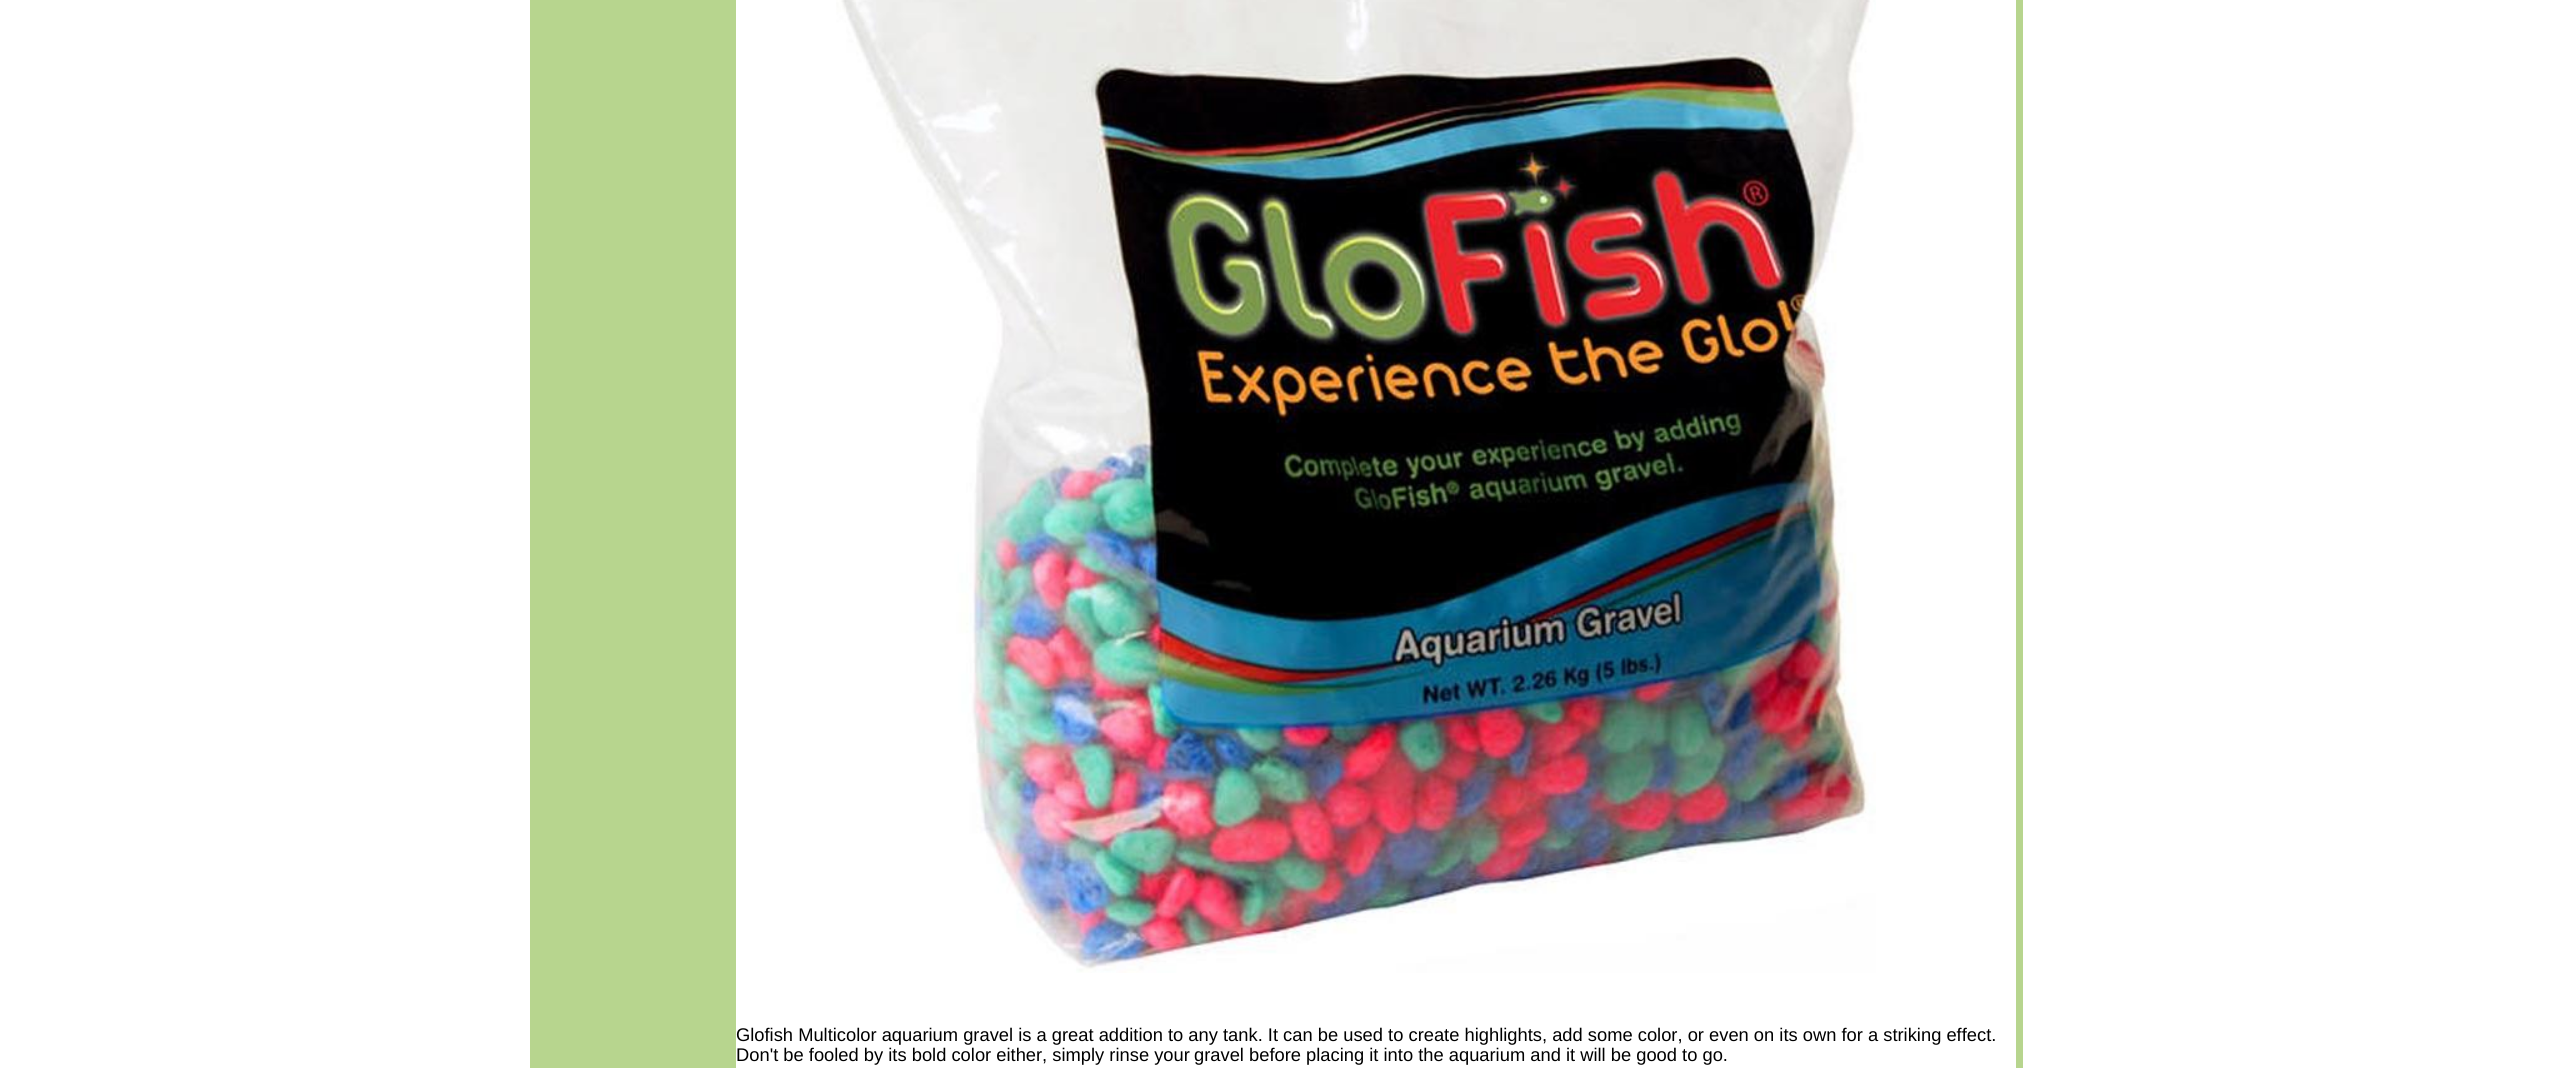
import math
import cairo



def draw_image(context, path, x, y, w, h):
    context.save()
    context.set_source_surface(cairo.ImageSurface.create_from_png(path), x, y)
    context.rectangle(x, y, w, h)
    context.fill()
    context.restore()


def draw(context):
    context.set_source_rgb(1, 1, 1)
    context.paint()
    context.set_source_rgb(183 / 255, 213 / 255, 142 / 255)
    context.rectangle(530, 0, 206, 1068)
    context.fill()
    draw_image(context, "images/1.png", 836, 0, 1040, 973)
    context.rectangle(2016, 0, 7, 1068)
    context.fill()
    context.select_font_face("Liberation Sans")
    context.set_font_size(18.33)
    context.set_source_rgb(0, 0, 0)
    context.move_to(736, 1041)
    context.show_text("Glofish Multicolor aquarium gravel is a great addition to any tank. It can be used to create highlights, add some color, or even on its own for a striking effect.")
    context.move_to(736, 1061)
    context.show_text("Don't be fooled by its bold color either, simply rinse your")
    context.move_to(1194, 1061)
    context.show_text("gravel before placing it into the aquarium and it will be good to go.")


surface = cairo.ImageSurface(cairo.Format.RGB24, 2551, 1068)
context = cairo.Context(surface)
options = cairo.FontOptions()
options.set_hint_metrics(cairo.HintMetrics.OFF)
options.set_hint_style(cairo.HintStyle.NONE)
context.set_font_options(options)
context.set_miter_limit(4)
draw(context)
surface.write_to_png("out.png")
